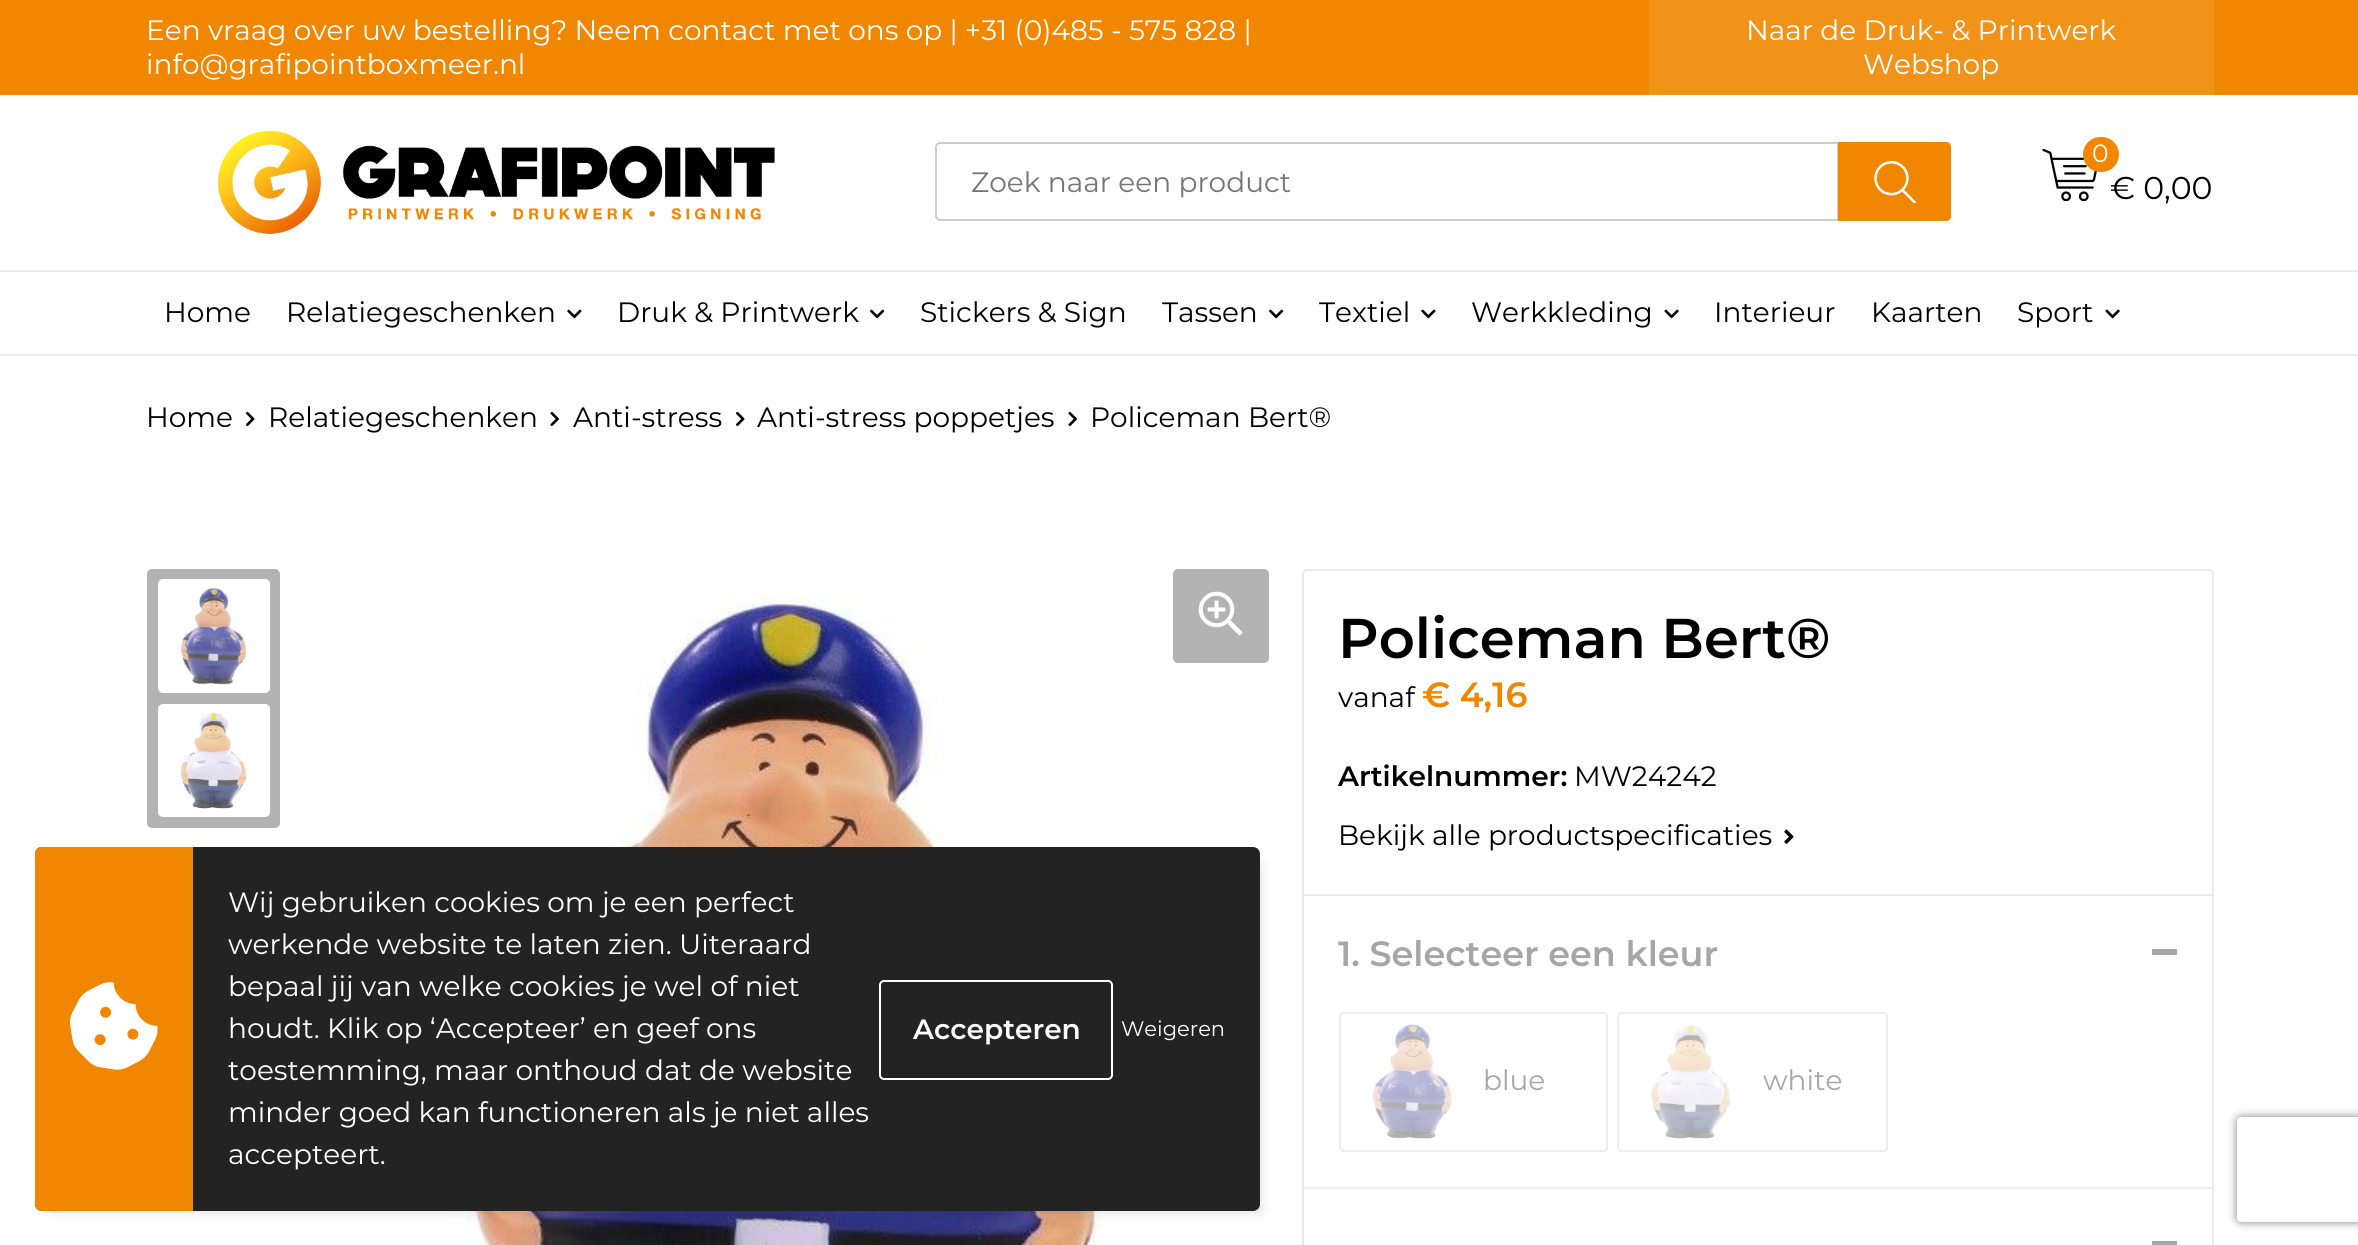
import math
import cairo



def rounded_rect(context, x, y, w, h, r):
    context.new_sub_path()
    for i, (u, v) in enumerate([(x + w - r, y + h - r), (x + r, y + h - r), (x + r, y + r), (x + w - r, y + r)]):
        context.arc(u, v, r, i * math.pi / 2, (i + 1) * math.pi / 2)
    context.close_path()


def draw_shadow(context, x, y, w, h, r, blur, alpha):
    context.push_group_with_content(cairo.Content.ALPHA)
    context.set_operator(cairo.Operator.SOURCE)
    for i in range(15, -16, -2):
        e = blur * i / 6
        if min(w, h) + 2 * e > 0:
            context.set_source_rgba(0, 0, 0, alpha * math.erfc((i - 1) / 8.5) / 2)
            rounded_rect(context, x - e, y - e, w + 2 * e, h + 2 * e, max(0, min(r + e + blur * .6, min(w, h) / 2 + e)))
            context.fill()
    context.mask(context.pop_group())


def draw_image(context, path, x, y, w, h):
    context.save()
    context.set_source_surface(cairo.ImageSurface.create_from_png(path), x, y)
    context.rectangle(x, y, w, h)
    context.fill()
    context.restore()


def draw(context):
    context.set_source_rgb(1, 1, 1)
    context.paint()
    context.set_source_rgb(241 / 255, 135 / 255, 0)
    context.rectangle(0, 0, 2358, 95)
    context.fill()
    context.set_source_rgb(242 / 255, 147 / 255, 25 / 255)
    context.rectangle(1649, 0, 565, 95)
    context.fill()
    draw_image(context, "images/1.png", 218, 131, 557, 103)
    context.new_path()
    context.move_to(940, 143)
    context.line_to(1838, 143)
    context.line_to(1838, 220)
    context.line_to(940, 220)
    context.curve_to(938, 220, 936, 218, 936, 216)
    context.line_to(936, 147)
    context.curve_to(936, 145, 938, 143, 940, 143)
    context.close_path()
    context.set_source_rgb(204 / 255, 204 / 255, 204 / 255)
    context.stroke()
    context.set_source_rgb(241 / 255, 135 / 255, 0)
    context.new_path()
    context.move_to(1838, 142)
    context.line_to(1946, 142)
    context.curve_to(1949, 142, 1951, 144, 1951, 147)
    context.line_to(1951, 216)
    context.curve_to(1951, 219, 1949, 221, 1946, 221)
    context.line_to(1838, 221)
    context.close_path()
    context.fill()
    draw_image(context, "images/2.png", 1874, 161, 42, 42)
    draw_image(context, "images/3.png", 2042, 149, 55, 52)
    rounded_rect(context, 2083, 137, 36, 35, 17.5)
    context.fill()
    context.set_source_rgb(234 / 255, 234 / 255, 234 / 255)
    context.rectangle(0, 270, 2358, 2)
    context.fill()
    context.rectangle(0, 354, 2358, 2)
    context.fill()
    draw_image(context, "images/4.png", 567, 309, 15, 10)
    draw_image(context, "images/5.png", 870, 309, 15, 10)
    draw_image(context, "images/5.png", 1269, 309, 15, 10)
    draw_image(context, "images/4.png", 1421, 309, 15, 10)
    draw_image(context, "images/6.png", 1664, 309, 15, 10)
    draw_image(context, "images/6.png", 2105, 309, 15, 10)
    draw_image(context, "images/7.png", 245, 411, 10, 16)
    draw_image(context, "images/8.png", 550, 411, 9, 15)
    draw_image(context, "images/7.png", 735, 411, 10, 16)
    draw_image(context, "images/8.png", 1068, 411, 9, 15)
    context.set_source_rgb(179 / 255, 179 / 255, 179 / 255)
    rounded_rect(context, 147, 569, 133, 259, 5)
    context.fill()
    context.set_source_rgb(1, 1, 1)
    rounded_rect(context, 158, 579, 112, 114, 5)
    context.fill()
    draw_image(context, "images/9.png", 179, 587, 68, 98)
    rounded_rect(context, 158, 704, 112, 113, 5)
    context.fill()
    draw_image(context, "images/10.png", 180, 712, 67, 97)
    draw_image(context, "images/11.png", 454, 594, 647, 651)
    context.set_source_rgb(179 / 255, 179 / 255, 179 / 255)
    rounded_rect(context, 1173, 569, 96, 94, 5)
    context.fill()
    draw_image(context, "images/12.png", 1198, 591, 45, 45)
    rounded_rect(context, 1303, 570, 910, 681, 4)
    context.set_source_rgb(234 / 255, 234 / 255, 234 / 255)
    context.stroke()
    context.rectangle(1304, 894, 908, 2)
    context.fill()
    draw_image(context, "images/13.png", 1784, 829, 10, 15)
    context.rectangle(1304, 1187, 908, 1)
    context.fill()
    context.set_source_rgb(241 / 255, 241 / 255, 241 / 255)
    context.rectangle(1304, 1188, 908, 1)
    context.fill()
    context.set_source_rgb(166 / 255, 166 / 255, 166 / 255)
    context.rectangle(2152, 949, 25, 6)
    context.fill()
    rounded_rect(context, 1340, 1013, 267, 138, 4)
    context.set_source_rgb(237 / 255, 237 / 255, 237 / 255)
    context.stroke()
    draw_image(context, "images/14.png", 1372, 1023, 81, 116)
    rounded_rect(context, 1618, 1013, 269, 138, 4)
    context.stroke()
    draw_image(context, "images/15.png", 1650, 1025, 81, 114)
    context.set_source_rgb(166 / 255, 166 / 255, 166 / 255)
    context.rectangle(2152, 1241, 25, 4)
    context.fill()
    context.set_source_rgb(0, 0, 0)
    draw_shadow(context, 53, 865, 1207, 346, 0, 6, 0.15)
    context.set_source_rgb(35 / 255, 35 / 255, 35 / 255)
    rounded_rect(context, 35, 847, 1225, 364, 7)
    context.fill()
    context.set_source_rgb(241 / 255, 135 / 255, 0)
    context.new_path()
    context.move_to(42, 847)
    context.line_to(193, 847)
    context.line_to(193, 1211)
    context.line_to(42, 1211)
    context.curve_to(38, 1211, 35, 1208, 35, 1204)
    context.line_to(35, 854)
    context.curve_to(35, 850, 38, 847, 42, 847)
    context.close_path()
    context.fill()
    draw_image(context, "images/16.png", 70, 982, 88, 88)
    rounded_rect(context, 880, 981, 232, 98, 4)
    context.set_source_rgb(1, 1, 1)
    context.stroke()
    context.save()
    context.set_fill_rule(cairo.FillRule.EVEN_ODD)
    context.new_path()
    context.move_to(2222, 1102)
    context.line_to(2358, 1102)
    context.line_to(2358, 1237)
    context.line_to(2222, 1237)
    context.close_path()
    context.move_to(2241, 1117)
    context.line_to(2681, 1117)
    context.curve_to(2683, 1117, 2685, 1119, 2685, 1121)
    context.line_to(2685, 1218)
    context.curve_to(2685, 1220, 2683, 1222, 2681, 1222)
    context.line_to(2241, 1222)
    context.curve_to(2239, 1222, 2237, 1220, 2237, 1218)
    context.line_to(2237, 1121)
    context.curve_to(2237, 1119, 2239, 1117, 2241, 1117)
    context.close_path()
    context.clip()
    context.set_source_rgb(128 / 255, 128 / 255, 128 / 255)
    draw_shadow(context, 2237, 1117, 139, 105, 4, 4.5, 1)
    context.restore()
    context.select_font_face("Montserrat")
    context.set_font_size(28)
    context.move_to(146, 40)
    context.show_text("Een vraag over uw bestelling? Neem contact met ons op | +31 (0)485 - 575 828 |")
    context.move_to(146, 74)
    context.show_text("info@grafipointboxmeer.nl")
    context.move_to(1746, 40)
    context.show_text("Naar de Druk- & Printwerk")
    context.move_to(1863, 74)
    context.show_text("Webshop")
    context.set_source_rgb(117 / 255, 117 / 255, 117 / 255)
    context.move_to(971, 192)
    context.show_text("Zoek naar een product")
    context.set_font_size(25)
    context.set_source_rgb(1, 1, 1)
    context.move_to(2092, 162)
    context.show_text("0")
    context.set_font_size(31.5)
    context.set_source_rgb(0, 0, 0)
    context.move_to(2110, 199)
    context.show_text("€ 0,00")
    context.set_font_size(28)
    context.move_to(164, 322)
    context.show_text("Home")
    context.move_to(286, 322)
    context.show_text("Relatiegeschenken")
    context.move_to(617, 322)
    context.show_text("Druk & Printwerk")
    context.move_to(920, 322)
    context.show_text("Stickers & Sign")
    context.move_to(1162, 322)
    context.show_text("Tassen")
    context.move_to(1319, 322)
    context.show_text("Textiel")
    context.move_to(1471, 322)
    context.show_text("Werkkleding")
    context.move_to(1714, 322)
    context.show_text("Interieur")
    context.move_to(1871, 322)
    context.show_text("Kaarten")
    context.move_to(2017, 322)
    context.show_text("Sport")
    context.move_to(146, 427)
    context.show_text("Home")
    context.move_to(268, 427)
    context.show_text("Relatiegeschenken")
    context.move_to(573, 427)
    context.show_text("Anti-stress")
    context.move_to(757, 427)
    context.show_text("Anti-stress poppetjes")
    context.move_to(1090, 427)
    context.show_text("Policeman Bert®")
    context.select_font_face("Montserrat SemiBold")
    context.set_font_size(56)
    context.move_to(1338, 658)
    context.show_text("Policeman Bert®")
    context.select_font_face("Montserrat")
    context.set_font_size(28)
    context.move_to(1338, 707)
    context.show_text("vanaf")
    context.select_font_face("Montserrat SemiBold")
    context.set_font_size(35)
    context.set_source_rgb(241 / 255, 135 / 255, 0)
    context.move_to(1422, 707)
    context.show_text("€ 4,16")
    context.set_font_size(28)
    context.set_source_rgb(0, 0, 0)
    context.move_to(1338, 786)
    context.show_text("Artikelnummer:")
    context.select_font_face("Montserrat")
    context.move_to(1574, 786)
    context.show_text("MW24242")
    context.move_to(1338, 845)
    context.show_text("Bekijk alle productspecificaties")
    context.select_font_face("Montserrat SemiBold")
    context.set_font_size(35)
    context.set_source_rgb(166 / 255, 166 / 255, 166 / 255)
    context.move_to(1338, 966)
    context.show_text("1. Selecteer een kleur")
    context.select_font_face("Montserrat")
    context.set_font_size(28)
    context.move_to(1483, 1090)
    context.show_text("blue")
    context.move_to(1763, 1090)
    context.show_text("white")
    context.set_source_rgb(1, 1, 1)
    context.move_to(228, 912)
    context.show_text("Wij gebruiken cookies om je een perfect")
    context.move_to(228, 954)
    context.show_text("werkende website te laten zien. Uiteraard")
    context.move_to(228, 996)
    context.show_text("bepaal jij van welke cookies je wel of niet")
    context.move_to(228, 1038)
    context.show_text("houdt. Klik op ‘Accepteer’ en geef ons")
    context.select_font_face("Montserrat SemiBold")
    context.move_to(913, 1039)
    context.show_text("Accepteren")
    context.select_font_face("Montserrat")
    context.set_font_size(21)
    context.move_to(1121, 1036)
    context.show_text("Weigeren")
    context.set_font_size(28)
    context.move_to(228, 1080)
    context.show_text("toestemming, maar onthoud dat de website")
    context.move_to(228, 1122)
    context.show_text("minder goed kan functioneren als je niet alles")
    context.move_to(228, 1164)
    context.show_text("accepteert.")


surface = cairo.ImageSurface(cairo.Format.RGB24, 2358, 1245)
context = cairo.Context(surface)
options = cairo.FontOptions()
options.set_hint_metrics(cairo.HintMetrics.OFF)
options.set_hint_style(cairo.HintStyle.NONE)
context.set_font_options(options)
context.set_miter_limit(4)
draw(context)
surface.write_to_png("out.png")
